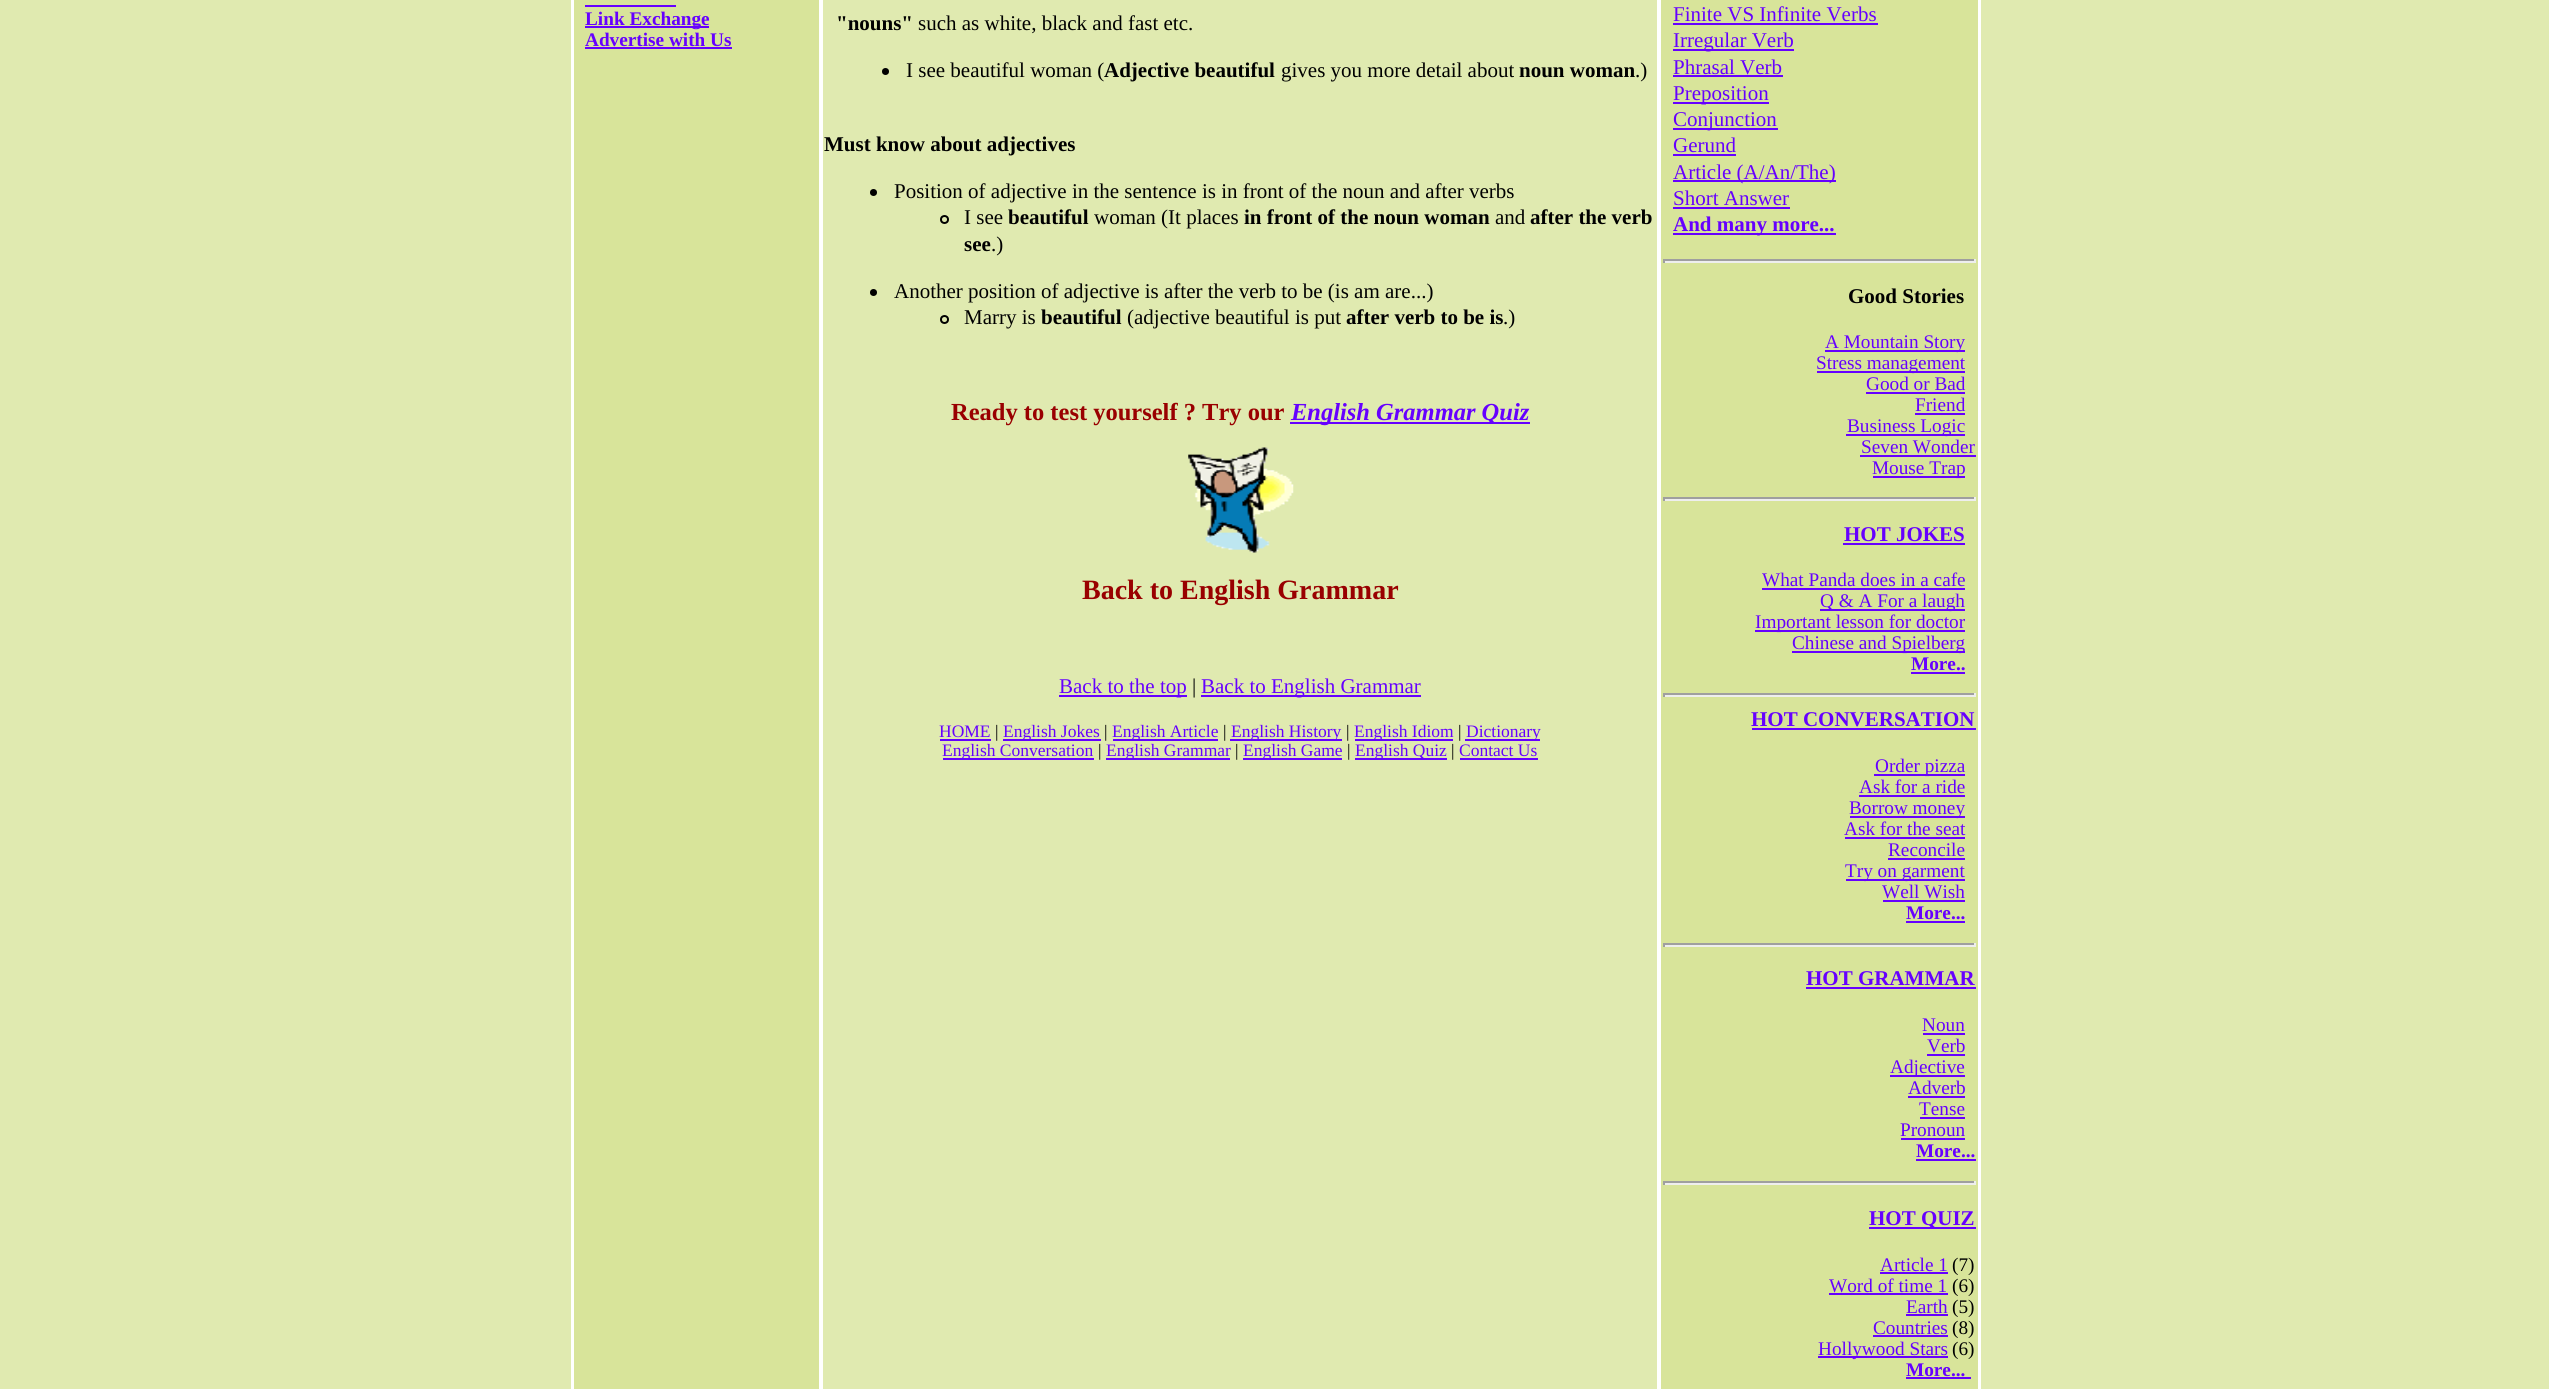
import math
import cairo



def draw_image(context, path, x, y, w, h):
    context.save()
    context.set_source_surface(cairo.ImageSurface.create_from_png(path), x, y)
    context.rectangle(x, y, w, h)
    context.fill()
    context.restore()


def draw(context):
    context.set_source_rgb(224 / 255, 234 / 255, 176 / 255)
    context.paint()
    context.set_source_rgb(1, 1, 1)
    context.rectangle(571, 0, 1410, 1389)
    context.fill()
    context.set_source_rgb(216 / 255, 228 / 255, 154 / 255)
    context.rectangle(574, 0, 245, 1389)
    context.fill()
    context.set_source_rgb(102 / 255, 0, 1)
    context.rectangle(585, 5, 91, 2)
    context.fill()
    context.rectangle(585, 26, 124, 2)
    context.fill()
    context.rectangle(585, 47, 147, 2)
    context.fill()
    context.set_source_rgb(224 / 255, 234 / 255, 176 / 255)
    context.rectangle(823, 0, 834, 1389)
    context.fill()
    context.set_source_rgb(0, 0, 0)
    context.arc(885.5, 71.5, 3.5, 0, 2 * math.pi)
    context.fill()
    context.arc(873.5, 192.5, 3.5, 0, 2 * math.pi)
    context.fill()
    context.arc(944.5, 219.5, 3.5, 0, 2 * math.pi)
    context.stroke()
    context.arc(873.5, 292.5, 3.5, 0, 2 * math.pi)
    context.fill()
    context.arc(944.5, 319.5, 3.5, 0, 2 * math.pi)
    context.stroke()
    context.set_source_rgb(102 / 255, 0, 1)
    context.rectangle(1290, 422, 240, 2)
    context.fill()
    draw_image(context, "images/1.png", 1188, 447, 106, 106)
    context.rectangle(1059, 695, 128, 2)
    context.fill()
    context.rectangle(1201, 695, 220, 2)
    context.fill()
    context.rectangle(940, 739, 51, 2)
    context.fill()
    context.rectangle(1003, 739, 98, 2)
    context.fill()
    context.rectangle(1113, 739, 105, 2)
    context.fill()
    context.rectangle(1230, 739, 112, 2)
    context.fill()
    context.rectangle(1355, 739, 98, 2)
    context.fill()
    context.rectangle(1465, 739, 75, 2)
    context.fill()
    context.rectangle(943, 758, 151, 2)
    context.fill()
    context.rectangle(1106, 758, 124, 2)
    context.fill()
    context.rectangle(1243, 758, 99, 2)
    context.fill()
    context.rectangle(1355, 758, 92, 2)
    context.fill()
    context.rectangle(1460, 758, 78, 2)
    context.fill()
    context.set_source_rgb(216 / 255, 228 / 255, 154 / 255)
    context.rectangle(1661, 0, 317, 1389)
    context.fill()
    context.set_source_rgb(102 / 255, 0, 1)
    context.rectangle(1673, 23, 205, 2)
    context.fill()
    context.rectangle(1673, 49, 121, 2)
    context.fill()
    context.rectangle(1673, 75, 110, 2)
    context.fill()
    context.rectangle(1673, 102, 96, 2)
    context.fill()
    context.rectangle(1673, 128, 105, 2)
    context.fill()
    context.rectangle(1673, 154, 63, 2)
    context.fill()
    context.rectangle(1673, 180, 163, 2)
    context.fill()
    context.rectangle(1673, 207, 117, 2)
    context.fill()
    context.rectangle(1673, 233, 163, 2)
    context.fill()
    context.set_source_rgb(159 / 255, 159 / 255, 159 / 255)
    context.rectangle(1663, 259, 313, 2)
    context.fill()
    context.set_source_rgb(238 / 255, 238 / 255, 238 / 255)
    context.rectangle(1974, 259, 2, 4)
    context.fill()
    context.rectangle(1663, 261, 313, 2)
    context.fill()
    context.set_source_rgb(159 / 255, 159 / 255, 159 / 255)
    context.rectangle(1663, 259, 2, 4)
    context.fill()
    context.set_source_rgb(102 / 255, 0, 1)
    context.rectangle(1825, 350, 140, 2)
    context.fill()
    context.rectangle(1817, 371, 148, 2)
    context.fill()
    context.rectangle(1866, 392, 99, 2)
    context.fill()
    context.rectangle(1915, 413, 50, 2)
    context.fill()
    context.rectangle(1846, 434, 119, 2)
    context.fill()
    context.rectangle(1860, 455, 116, 2)
    context.fill()
    context.rectangle(1873, 476, 92, 2)
    context.fill()
    context.set_source_rgb(159 / 255, 159 / 255, 159 / 255)
    context.rectangle(1663, 497, 313, 2)
    context.fill()
    context.set_source_rgb(238 / 255, 238 / 255, 238 / 255)
    context.rectangle(1974, 497, 2, 4)
    context.fill()
    context.rectangle(1663, 499, 313, 2)
    context.fill()
    context.set_source_rgb(159 / 255, 159 / 255, 159 / 255)
    context.rectangle(1663, 497, 2, 4)
    context.fill()
    context.set_source_rgb(102 / 255, 0, 1)
    context.rectangle(1843, 543, 122, 2)
    context.fill()
    context.rectangle(1762, 588, 203, 2)
    context.fill()
    context.rectangle(1820, 609, 145, 2)
    context.fill()
    context.rectangle(1755, 630, 210, 2)
    context.fill()
    context.rectangle(1792, 651, 173, 2)
    context.fill()
    context.rectangle(1911, 672, 54, 2)
    context.fill()
    context.set_source_rgb(159 / 255, 159 / 255, 159 / 255)
    context.rectangle(1663, 693, 313, 2)
    context.fill()
    context.set_source_rgb(238 / 255, 238 / 255, 238 / 255)
    context.rectangle(1974, 693, 2, 4)
    context.fill()
    context.rectangle(1663, 695, 313, 2)
    context.fill()
    context.set_source_rgb(159 / 255, 159 / 255, 159 / 255)
    context.rectangle(1663, 693, 2, 4)
    context.fill()
    context.set_source_rgb(102 / 255, 0, 1)
    context.rectangle(1752, 728, 224, 2)
    context.fill()
    context.rectangle(1874, 774, 91, 2)
    context.fill()
    context.rectangle(1859, 795, 106, 2)
    context.fill()
    context.rectangle(1850, 816, 115, 2)
    context.fill()
    context.rectangle(1845, 837, 120, 2)
    context.fill()
    context.rectangle(1888, 858, 77, 2)
    context.fill()
    context.rectangle(1846, 879, 119, 2)
    context.fill()
    context.rectangle(1883, 900, 82, 2)
    context.fill()
    context.rectangle(1906, 921, 59, 2)
    context.fill()
    context.set_source_rgb(159 / 255, 159 / 255, 159 / 255)
    context.rectangle(1663, 943, 313, 2)
    context.fill()
    context.set_source_rgb(238 / 255, 238 / 255, 238 / 255)
    context.rectangle(1974, 943, 2, 4)
    context.fill()
    context.rectangle(1663, 945, 313, 2)
    context.fill()
    context.set_source_rgb(159 / 255, 159 / 255, 159 / 255)
    context.rectangle(1663, 943, 2, 4)
    context.fill()
    context.set_source_rgb(102 / 255, 0, 1)
    context.rectangle(1806, 987, 170, 2)
    context.fill()
    context.rectangle(1923, 1033, 42, 2)
    context.fill()
    context.rectangle(1927, 1054, 38, 2)
    context.fill()
    context.rectangle(1890, 1075, 75, 2)
    context.fill()
    context.rectangle(1908, 1096, 57, 2)
    context.fill()
    context.rectangle(1920, 1117, 45, 2)
    context.fill()
    context.rectangle(1901, 1138, 64, 2)
    context.fill()
    context.rectangle(1916, 1159, 60, 2)
    context.fill()
    context.set_source_rgb(159 / 255, 159 / 255, 159 / 255)
    context.rectangle(1663, 1181, 313, 2)
    context.fill()
    context.set_source_rgb(238 / 255, 238 / 255, 238 / 255)
    context.rectangle(1974, 1181, 2, 4)
    context.fill()
    context.rectangle(1663, 1183, 313, 2)
    context.fill()
    context.set_source_rgb(159 / 255, 159 / 255, 159 / 255)
    context.rectangle(1663, 1181, 2, 4)
    context.fill()
    context.set_source_rgb(102 / 255, 0, 1)
    context.rectangle(1869, 1227, 107, 2)
    context.fill()
    context.rectangle(1880, 1272, 68, 2)
    context.fill()
    context.rectangle(1829, 1293, 119, 2)
    context.fill()
    context.rectangle(1906, 1314, 42, 2)
    context.fill()
    context.rectangle(1873, 1335, 75, 2)
    context.fill()
    context.rectangle(1818, 1356, 130, 2)
    context.fill()
    context.rectangle(1906, 1377, 65, 2)
    context.fill()
    context.select_font_face("Liberation Serif", cairo.FontSlant.NORMAL, cairo.FontWeight.BOLD)
    context.set_font_size(19.25)
    context.move_to(585, 25)
    context.show_text("Link Exchange")
    context.move_to(585, 46)
    context.show_text("Advertise with Us")
    context.set_font_size(21)
    context.set_source_rgb(0, 0, 0)
    context.move_to(836, 30)
    context.show_text("\"nouns\"")
    context.select_font_face("Liberation Serif")
    context.move_to(918, 30)
    context.show_text("such as white, black and fast etc.")
    context.move_to(906, 77)
    context.show_text("I see beautiful woman (")
    context.select_font_face("Liberation Serif", cairo.FontSlant.NORMAL, cairo.FontWeight.BOLD)
    context.move_to(1104, 77)
    context.show_text("Adjective beautiful")
    context.select_font_face("Liberation Serif")
    context.move_to(1281, 77)
    context.show_text("gives you more detail about")
    context.select_font_face("Liberation Serif", cairo.FontSlant.NORMAL, cairo.FontWeight.BOLD)
    context.move_to(1519, 77)
    context.show_text("noun woman")
    context.select_font_face("Liberation Serif")
    context.move_to(1635, 77)
    context.show_text(".)")
    context.select_font_face("Liberation Serif", cairo.FontSlant.NORMAL, cairo.FontWeight.BOLD)
    context.move_to(824, 151)
    context.show_text("Must know about adjectives")
    context.select_font_face("Liberation Serif")
    context.move_to(894, 198)
    context.show_text("Position of adjective in the sentence is in front of the noun and after verbs")
    context.move_to(964, 224)
    context.show_text("I see")
    context.select_font_face("Liberation Serif", cairo.FontSlant.NORMAL, cairo.FontWeight.BOLD)
    context.move_to(1008, 224)
    context.show_text("beautiful")
    context.select_font_face("Liberation Serif")
    context.move_to(1094, 224)
    context.show_text("woman (It places")
    context.select_font_face("Liberation Serif", cairo.FontSlant.NORMAL, cairo.FontWeight.BOLD)
    context.move_to(1244, 224)
    context.show_text("in front of the noun woman")
    context.select_font_face("Liberation Serif")
    context.move_to(1495, 224)
    context.show_text("and")
    context.select_font_face("Liberation Serif", cairo.FontSlant.NORMAL, cairo.FontWeight.BOLD)
    context.move_to(1530, 224)
    context.show_text("after the verb")
    context.move_to(964, 251)
    context.show_text("see")
    context.select_font_face("Liberation Serif")
    context.move_to(991, 251)
    context.show_text(".)")
    context.move_to(894, 298)
    context.show_text("Another position of adjective is after the verb to be (is am are...)")
    context.move_to(964, 324)
    context.show_text("Marry is")
    context.select_font_face("Liberation Serif", cairo.FontSlant.NORMAL, cairo.FontWeight.BOLD)
    context.move_to(1041, 324)
    context.show_text("beautiful")
    context.select_font_face("Liberation Serif")
    context.move_to(1127, 324)
    context.show_text("(adjective beautiful is put")
    context.select_font_face("Liberation Serif", cairo.FontSlant.NORMAL, cairo.FontWeight.BOLD)
    context.move_to(1346, 324)
    context.show_text("after verb to be is")
    context.select_font_face("Liberation Serif")
    context.move_to(1503, 324)
    context.show_text(".)")
    context.select_font_face("Liberation Serif", cairo.FontSlant.NORMAL, cairo.FontWeight.BOLD)
    context.set_font_size(24.5)
    context.set_source_rgb(153 / 255, 0, 0)
    context.move_to(951, 420)
    context.show_text("Ready to test yourself ? Try our")
    context.select_font_face("Liberation Serif", cairo.FontSlant.ITALIC, cairo.FontWeight.BOLD)
    context.set_source_rgb(102 / 255, 0, 1)
    context.move_to(1291, 420)
    context.show_text("English Grammar Quiz")
    context.select_font_face("Liberation Serif", cairo.FontSlant.NORMAL, cairo.FontWeight.BOLD)
    context.set_font_size(28)
    context.set_source_rgb(153 / 255, 0, 0)
    context.move_to(1082, 599)
    context.show_text("Back to English Grammar")
    context.select_font_face("Liberation Serif")
    context.set_font_size(21)
    context.set_source_rgb(102 / 255, 0, 1)
    context.move_to(1059, 693)
    context.show_text("Back to the top")
    context.set_source_rgb(0, 0, 0)
    context.move_to(1192, 693)
    context.show_text("|")
    context.set_source_rgb(102 / 255, 0, 1)
    context.move_to(1201, 693)
    context.show_text("Back to English Grammar")
    context.set_font_size(17.5)
    context.move_to(939, 737)
    context.show_text("HOME")
    context.set_source_rgb(0, 0, 0)
    context.move_to(995, 737)
    context.show_text("|")
    context.set_source_rgb(102 / 255, 0, 1)
    context.move_to(1003, 737)
    context.show_text("English Jokes")
    context.set_source_rgb(0, 0, 0)
    context.move_to(1104, 737)
    context.show_text("|")
    context.set_source_rgb(102 / 255, 0, 1)
    context.move_to(1112, 737)
    context.show_text("English Article")
    context.set_source_rgb(0, 0, 0)
    context.move_to(1223, 737)
    context.show_text("|")
    context.set_source_rgb(102 / 255, 0, 1)
    context.move_to(1231, 737)
    context.show_text("English History")
    context.set_source_rgb(0, 0, 0)
    context.move_to(1346, 737)
    context.show_text("|")
    context.set_source_rgb(102 / 255, 0, 1)
    context.move_to(1354, 737)
    context.show_text("English Idiom")
    context.set_source_rgb(0, 0, 0)
    context.move_to(1458, 737)
    context.show_text("|")
    context.set_source_rgb(102 / 255, 0, 1)
    context.move_to(1466, 737)
    context.show_text("Dictionary")
    context.move_to(942, 756)
    context.show_text("English Conversation")
    context.set_source_rgb(0, 0, 0)
    context.move_to(1098, 756)
    context.show_text("|")
    context.set_source_rgb(102 / 255, 0, 1)
    context.move_to(1106, 756)
    context.show_text("English Grammar")
    context.set_source_rgb(0, 0, 0)
    context.move_to(1235, 756)
    context.show_text("|")
    context.set_source_rgb(102 / 255, 0, 1)
    context.move_to(1243, 756)
    context.show_text("English Game")
    context.set_source_rgb(0, 0, 0)
    context.move_to(1347, 756)
    context.show_text("|")
    context.set_source_rgb(102 / 255, 0, 1)
    context.move_to(1355, 756)
    context.show_text("English Quiz")
    context.set_source_rgb(0, 0, 0)
    context.move_to(1451, 756)
    context.show_text("|")
    context.set_source_rgb(102 / 255, 0, 1)
    context.move_to(1459, 756)
    context.show_text("Contact Us")
    context.set_font_size(21)
    context.move_to(1673, 21)
    context.show_text("Finite VS Infinite Verbs")
    context.move_to(1673, 47)
    context.show_text("Irregular Verb")
    context.move_to(1673, 74)
    context.show_text("Phrasal Verb")
    context.move_to(1673, 100)
    context.show_text("Preposition")
    context.move_to(1673, 126)
    context.show_text("Conjunction")
    context.move_to(1673, 152)
    context.show_text("Gerund")
    context.move_to(1673, 179)
    context.show_text("Article (A/An/The)")
    context.move_to(1673, 205)
    context.show_text("Short Answer")
    context.select_font_face("Liberation Serif", cairo.FontSlant.NORMAL, cairo.FontWeight.BOLD)
    context.move_to(1673, 231)
    context.show_text("And many more...")
    context.set_source_rgb(0, 0, 0)
    context.move_to(1848, 303)
    context.show_text("Good Stories")
    context.select_font_face("Liberation Serif")
    context.set_font_size(19.25)
    context.set_source_rgb(102 / 255, 0, 1)
    context.move_to(1825, 348)
    context.show_text("A Mountain Story")
    context.move_to(1816, 369)
    context.show_text("Stress management")
    context.move_to(1866, 390)
    context.show_text("Good or Bad")
    context.move_to(1915, 411)
    context.show_text("Friend")
    context.move_to(1847, 432)
    context.show_text("Business Logic")
    context.move_to(1861, 453)
    context.show_text("Seven Wonder")
    context.move_to(1872, 474)
    context.show_text("Mouse Trap")
    context.select_font_face("Liberation Serif", cairo.FontSlant.NORMAL, cairo.FontWeight.BOLD)
    context.set_font_size(21)
    context.move_to(1844, 541)
    context.show_text("HOT JOKES")
    context.select_font_face("Liberation Serif")
    context.set_font_size(19.25)
    context.move_to(1762, 586)
    context.show_text("What Panda does in a cafe")
    context.move_to(1820, 607)
    context.show_text("Q & A For a laugh")
    context.move_to(1755, 628)
    context.show_text("Important lesson for doctor")
    context.move_to(1792, 649)
    context.show_text("Chinese and Spielberg")
    context.select_font_face("Liberation Serif", cairo.FontSlant.NORMAL, cairo.FontWeight.BOLD)
    context.move_to(1911, 670)
    context.show_text("More..")
    context.set_font_size(21)
    context.move_to(1751, 726)
    context.show_text("HOT CONVERSATION")
    context.select_font_face("Liberation Serif")
    context.set_font_size(19.25)
    context.move_to(1875, 772)
    context.show_text("Order pizza")
    context.move_to(1859, 793)
    context.show_text("Ask for a ride")
    context.move_to(1849, 814)
    context.show_text("Borrow money")
    context.move_to(1844, 835)
    context.show_text("Ask for the seat")
    context.move_to(1888, 856)
    context.show_text("Reconcile")
    context.move_to(1845, 877)
    context.show_text("Try on garment")
    context.move_to(1882, 898)
    context.show_text("Well Wish")
    context.select_font_face("Liberation Serif", cairo.FontSlant.NORMAL, cairo.FontWeight.BOLD)
    context.move_to(1906, 919)
    context.show_text("More...")
    context.set_font_size(21)
    context.move_to(1806, 985)
    context.show_text("HOT GRAMMAR")
    context.select_font_face("Liberation Serif")
    context.set_font_size(19.25)
    context.move_to(1922, 1031)
    context.show_text("Noun")
    context.move_to(1927, 1052)
    context.show_text("Verb")
    context.move_to(1890, 1073)
    context.show_text("Adjective")
    context.move_to(1908, 1094)
    context.show_text("Adverb")
    context.move_to(1919, 1115)
    context.show_text("Tense")
    context.move_to(1900, 1136)
    context.show_text("Pronoun")
    context.select_font_face("Liberation Serif", cairo.FontSlant.NORMAL, cairo.FontWeight.BOLD)
    context.move_to(1916, 1157)
    context.show_text("More...")
    context.set_font_size(21)
    context.move_to(1869, 1225)
    context.show_text("HOT QUIZ")
    context.select_font_face("Liberation Serif")
    context.set_font_size(19.25)
    context.move_to(1880, 1271)
    context.show_text("Article 1")
    context.set_source_rgb(0, 0, 0)
    context.move_to(1952, 1271)
    context.show_text("(7)")
    context.set_source_rgb(102 / 255, 0, 1)
    context.move_to(1829, 1292)
    context.show_text("Word of time 1")
    context.set_source_rgb(0, 0, 0)
    context.move_to(1952, 1292)
    context.show_text("(6)")
    context.set_source_rgb(102 / 255, 0, 1)
    context.move_to(1906, 1313)
    context.show_text("Earth")
    context.set_source_rgb(0, 0, 0)
    context.move_to(1952, 1313)
    context.show_text("(5)")
    context.set_source_rgb(102 / 255, 0, 1)
    context.move_to(1873, 1334)
    context.show_text("Countries")
    context.set_source_rgb(0, 0, 0)
    context.move_to(1952, 1334)
    context.show_text("(8)")
    context.set_source_rgb(102 / 255, 0, 1)
    context.move_to(1818, 1355)
    context.show_text("Hollywood Stars")
    context.set_source_rgb(0, 0, 0)
    context.move_to(1952, 1355)
    context.show_text("(6)")
    context.select_font_face("Liberation Serif", cairo.FontSlant.NORMAL, cairo.FontWeight.BOLD)
    context.set_source_rgb(102 / 255, 0, 1)
    context.move_to(1906, 1376)
    context.show_text("More...")


surface = cairo.ImageSurface(cairo.Format.RGB24, 2549, 1389)
context = cairo.Context(surface)
options = cairo.FontOptions()
options.set_hint_metrics(cairo.HintMetrics.OFF)
options.set_hint_style(cairo.HintStyle.NONE)
context.set_font_options(options)
context.set_miter_limit(4)
draw(context)
surface.write_to_png("out.png")
